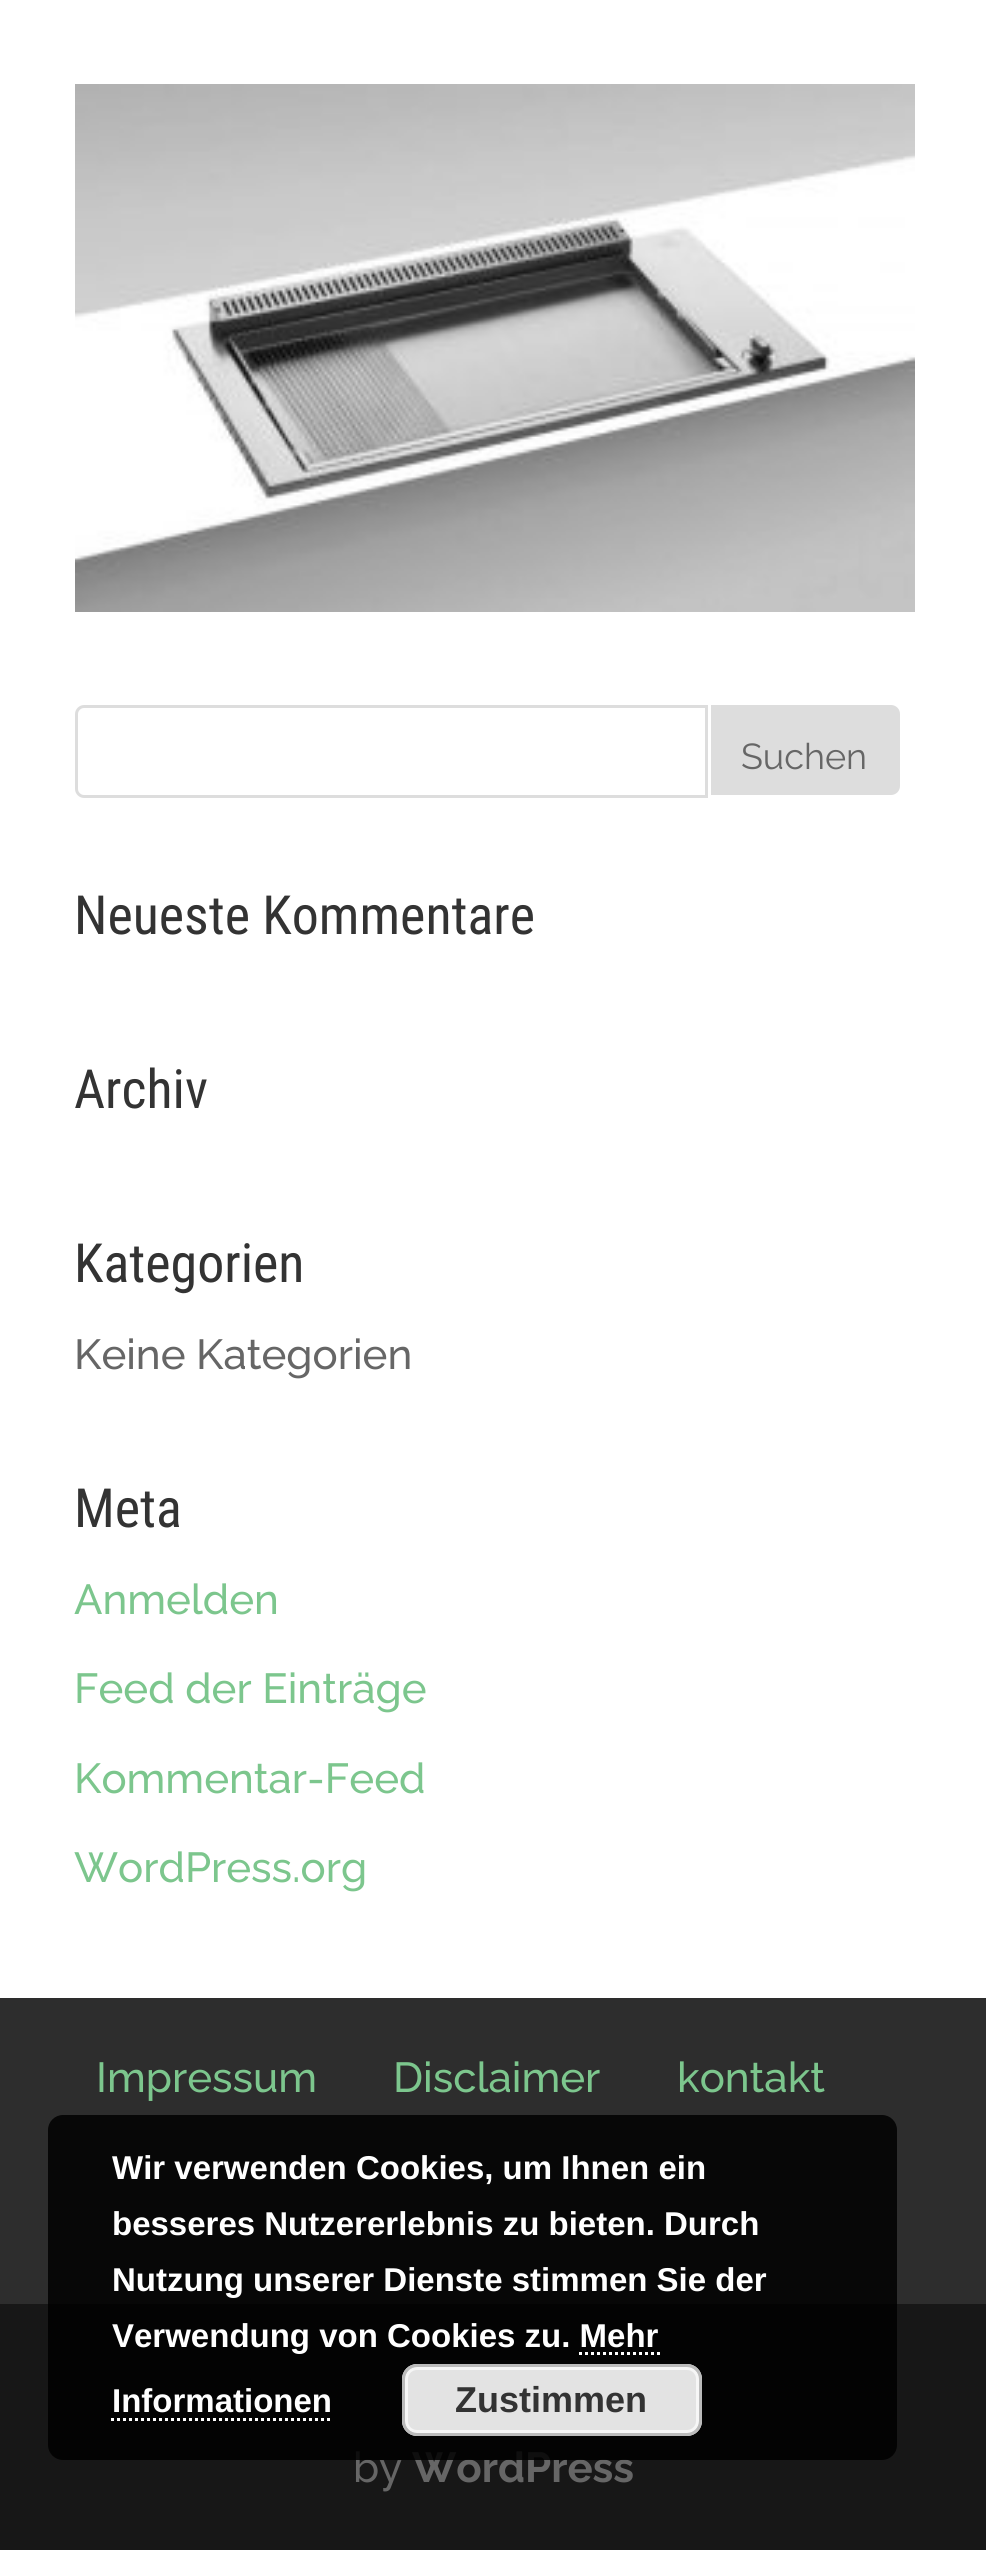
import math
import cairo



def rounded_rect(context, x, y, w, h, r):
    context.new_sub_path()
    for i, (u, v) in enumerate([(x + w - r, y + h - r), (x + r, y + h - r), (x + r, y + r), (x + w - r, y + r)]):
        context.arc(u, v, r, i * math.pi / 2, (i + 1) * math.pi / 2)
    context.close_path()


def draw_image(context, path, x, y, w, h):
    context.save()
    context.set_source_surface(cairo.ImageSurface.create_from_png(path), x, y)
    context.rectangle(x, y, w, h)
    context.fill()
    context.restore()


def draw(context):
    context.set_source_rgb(1, 1, 1)
    context.paint()
    draw_image(context, "images/1.png", 75, 84, 840, 528)
    context.new_path()
    context.move_to(84, 706.5)
    context.line_to(706.5, 706.5)
    context.line_to(706.5, 796.5)
    context.line_to(84, 796.5)
    context.curve_to(80, 796.5, 76.5, 793, 76.5, 789)
    context.line_to(76.5, 714)
    context.curve_to(76.5, 710, 80, 706.5, 84, 706.5)
    context.close_path()
    context.set_source_rgb(221 / 255, 221 / 255, 221 / 255)
    context.set_line_width(3)
    context.stroke()
    context.new_path()
    context.move_to(711, 705)
    context.line_to(891, 705)
    context.curve_to(896, 705, 900, 709, 900, 714)
    context.line_to(900, 786)
    context.curve_to(900, 791, 896, 795, 891, 795)
    context.line_to(711, 795)
    context.close_path()
    context.fill()
    context.set_source_rgb(45 / 255, 45 / 255, 45 / 255)
    context.rectangle(0, 1998, 986, 306)
    context.fill()
    context.set_source_rgb(23 / 255, 23 / 255, 23 / 255)
    context.rectangle(0, 2304, 986, 246)
    context.fill()
    context.select_font_face("Raleway")
    context.set_font_size(36)
    context.set_source_rgb(102 / 255, 102 / 255, 102 / 255)
    context.move_to(741, 769)
    context.show_text("Suchen")
    context.select_font_face("Roboto Condensed")
    context.set_font_size(54)
    context.set_source_rgb(51 / 255, 51 / 255, 51 / 255)
    context.move_to(74, 934)
    context.show_text("Neueste Kommentare")
    context.move_to(74, 1108)
    context.show_text("Archiv")
    context.move_to(74, 1282)
    context.show_text("Kategorien")
    context.select_font_face("Raleway Medium")
    context.set_font_size(42)
    context.set_source_rgb(102 / 255, 102 / 255, 102 / 255)
    context.move_to(74, 1369)
    context.show_text("Keine Kategorien")
    context.select_font_face("Roboto Condensed")
    context.set_font_size(54)
    context.set_source_rgb(51 / 255, 51 / 255, 51 / 255)
    context.move_to(74, 1527)
    context.show_text("Meta")
    context.select_font_face("Raleway Medium")
    context.set_font_size(42)
    context.set_source_rgb(124 / 255, 198 / 255, 141 / 255)
    context.move_to(74, 1614)
    context.show_text("Anmelden")
    context.move_to(74, 1703)
    context.show_text("Feed der Einträge")
    context.move_to(74, 1793)
    context.show_text("Kommentar-Feed")
    context.move_to(74, 1882)
    context.show_text("WordPress.org")
    context.move_to(96, 2092)
    context.show_text("Impressum")
    context.move_to(393, 2092)
    context.show_text("Disclaimer")
    context.move_to(677, 2092)
    context.show_text("kontakt")
    context.set_source_rgb(102 / 255, 102 / 255, 102 / 255)
    context.move_to(353, 2482)
    context.show_text("by")
    context.select_font_face("Raleway", cairo.FontSlant.NORMAL, cairo.FontWeight.BOLD)
    context.move_to(412, 2482)
    context.show_text("WordPress")
    context.set_source_rgba(0, 0, 0, 0.85)
    rounded_rect(context, 48, 2115, 849, 345, 15)
    context.fill()
    context.select_font_face("Liberation Sans", cairo.FontSlant.NORMAL, cairo.FontWeight.BOLD)
    context.set_font_size(33)
    context.set_source_rgb(1, 1, 1)
    context.move_to(112, 2179)
    context.show_text("Wir verwenden Cookies, um Ihnen ein")
    context.move_to(112, 2235)
    context.show_text("besseres Nutzererlebnis zu bieten. Durch")
    context.move_to(112, 2291)
    context.show_text("Nutzung unserer Dienste stimmen Sie der")
    context.move_to(112, 2347)
    context.show_text("Verwendung von Cookies zu. Mehr")
    context.move_to(112, 2412)
    context.show_text("Informationen")
    context.new_path()
    context.move_to(579, 2353.5)
    context.line_to(660, 2353.5)
    context.set_dash([3, 3])
    context.stroke()
    context.new_path()
    context.move_to(111, 2419.5)
    context.line_to(333, 2419.5)
    context.stroke()
    context.set_source_rgb(227 / 255, 227 / 255, 227 / 255)
    rounded_rect(context, 402, 2364, 300, 72, 15)
    context.fill()
    rounded_rect(context, 406.5, 2368.5, 291, 63, 10.5)
    context.set_source_rgb(246 / 255, 246 / 255, 246 / 255)
    context.set_dash([])
    context.stroke()
    rounded_rect(context, 403.5, 2365.5, 297, 69, 13.5)
    context.set_source_rgb(187 / 255, 187 / 255, 187 / 255)
    context.stroke()
    context.set_font_size(36)
    context.set_source_rgb(51 / 255, 51 / 255, 51 / 255)
    context.move_to(455, 2412)
    context.show_text("Zustimmen")


surface = cairo.ImageSurface(cairo.Format.RGB24, 986, 2550)
context = cairo.Context(surface)
options = cairo.FontOptions()
options.set_hint_metrics(cairo.HintMetrics.OFF)
options.set_hint_style(cairo.HintStyle.NONE)
context.set_font_options(options)
context.set_miter_limit(4)
draw(context)
surface.write_to_png("out.png")
